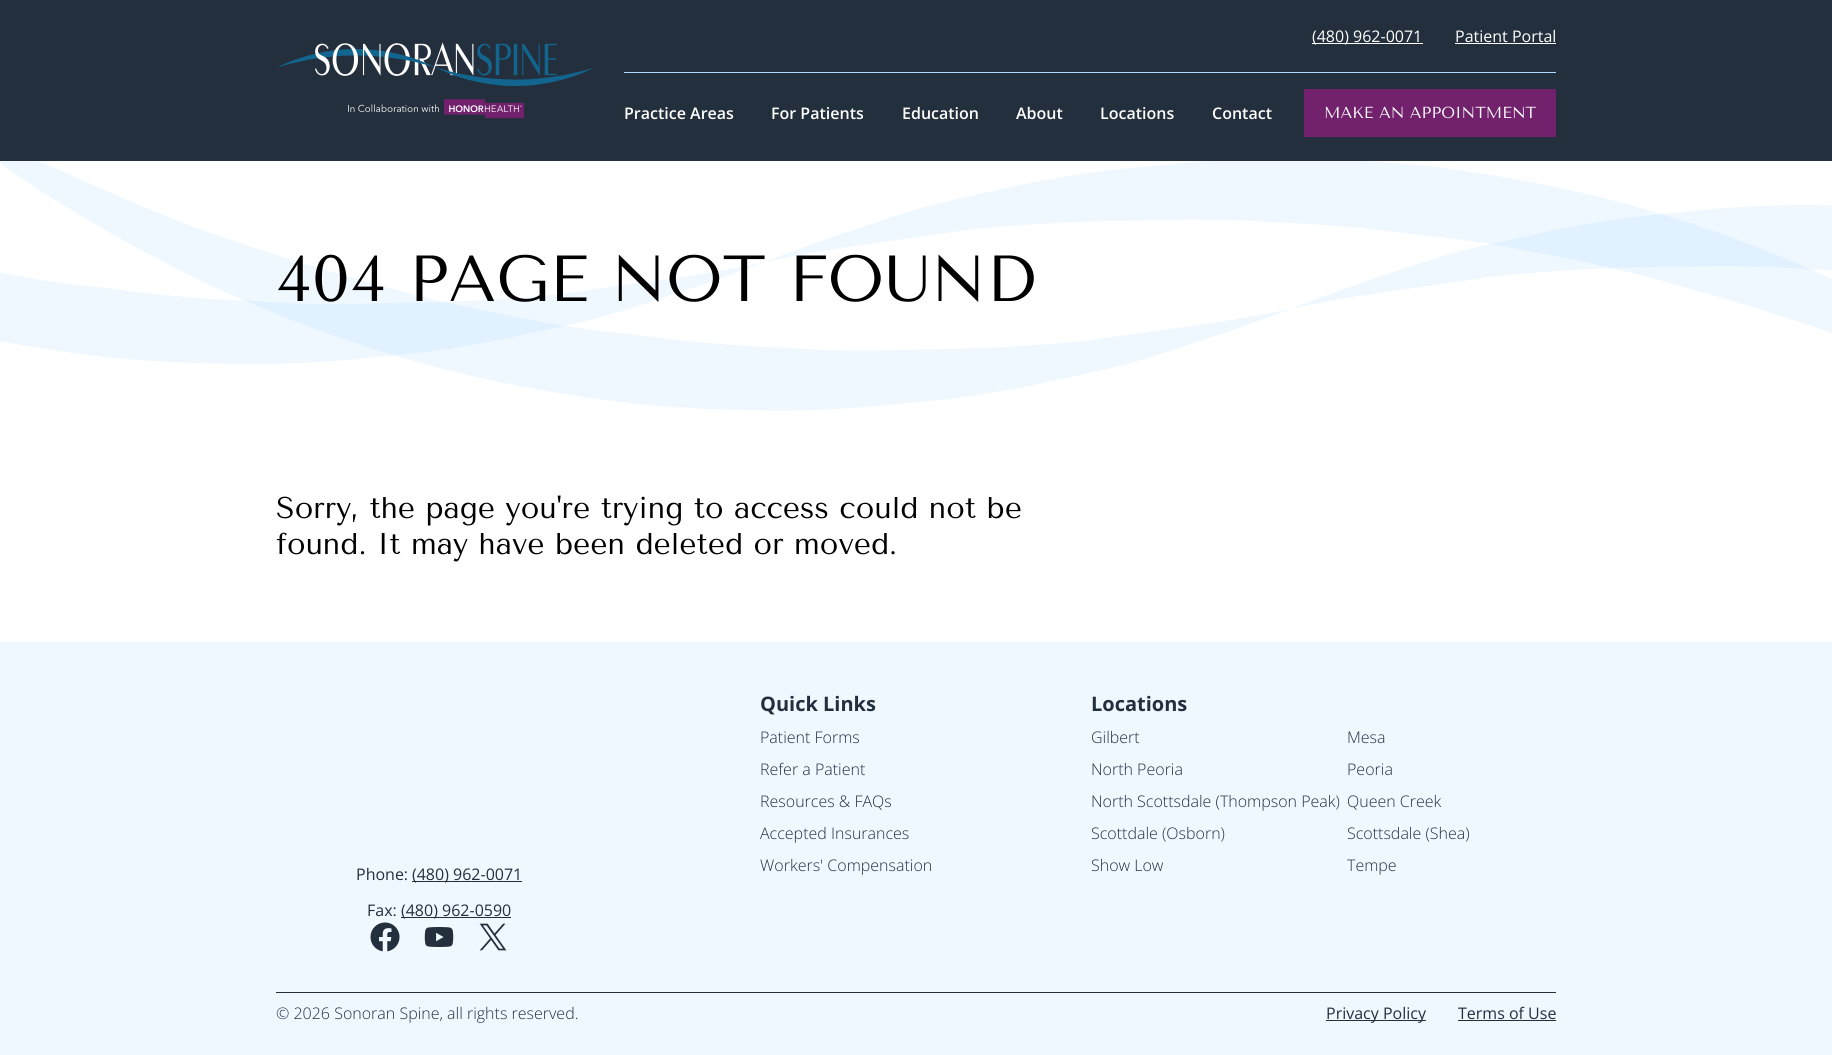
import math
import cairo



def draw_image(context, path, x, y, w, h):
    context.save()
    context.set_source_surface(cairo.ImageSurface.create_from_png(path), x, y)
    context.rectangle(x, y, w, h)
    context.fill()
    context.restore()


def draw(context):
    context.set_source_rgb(1, 1, 1)
    context.paint()
    context.set_source_rgb(35 / 255, 47 / 255, 60 / 255)
    context.rectangle(0, 0, 1832, 161)
    context.fill()
    draw_image(context, "images/1.png", 277, 42, 317, 77)
    context.set_source_rgb(176 / 255, 217 / 255, 1)
    context.rectangle(624, 72, 932, 1)
    context.fill()
    context.set_source_rgb(1, 1, 1)
    context.rectangle(1312, 43, 111, 1)
    context.fill()
    context.rectangle(1455, 43, 101, 1)
    context.fill()
    context.set_source_rgb(114 / 255, 34 / 255, 109 / 255)
    context.rectangle(1304, 89, 252, 48)
    context.fill()
    draw_image(context, "images/2.png", 0, 161, 1832, 250)
    context.set_source_rgb(239 / 255, 247 / 255, 1)
    context.rectangle(0, 642, 1832, 413)
    context.fill()
    context.set_source_rgb(35 / 255, 47 / 255, 60 / 255)
    context.rectangle(276, 992, 1280, 1)
    context.fill()
    context.rectangle(412, 881, 110, 1)
    context.fill()
    context.rectangle(401, 917, 110, 1)
    context.fill()
    draw_image(context, "images/3.png", 370, 922, 30, 30)
    draw_image(context, "images/4.png", 424, 927, 30, 20)
    draw_image(context, "images/5.png", 479, 923, 28, 28)
    context.rectangle(1326, 1020, 100, 1)
    context.fill()
    context.rectangle(1458, 1020, 98, 1)
    context.fill()
    context.select_font_face("Open Sans")
    context.set_font_size(16)
    context.set_source_rgb(1, 1, 1)
    context.move_to(1312, 42)
    context.show_text("(480) 962-0071")
    context.move_to(1455, 42)
    context.show_text("Patient Portal")
    context.select_font_face("Open Sans SemiBold")
    context.move_to(624, 119)
    context.show_text("Practice Areas")
    context.move_to(771, 119)
    context.show_text("For Patients")
    context.move_to(902, 119)
    context.show_text("Education")
    context.move_to(1016, 119)
    context.show_text("About")
    context.move_to(1100, 119)
    context.show_text("Locations")
    context.move_to(1212, 119)
    context.show_text("Contact")
    context.select_font_face("Tenor Sans")
    context.move_to(1324, 118)
    context.show_text("MAKE AN APPOINTMENT")
    context.set_font_size(65)
    context.set_source_rgb(0, 0, 0)
    context.move_to(276, 301)
    context.show_text("404 PAGE NOT FOUND")
    context.set_font_size(30)
    context.move_to(276, 518)
    context.show_text("Sorry, the page you're trying to access could not be")
    context.move_to(276, 554)
    context.show_text("found. It may have been deleted or moved.")
    context.select_font_face("Open Sans", cairo.FontSlant.NORMAL, cairo.FontWeight.BOLD)
    context.set_font_size(20)
    context.set_source_rgb(35 / 255, 47 / 255, 60 / 255)
    context.move_to(760, 711)
    context.show_text("Quick Links")
    context.select_font_face("Open Sans Light")
    context.set_font_size(16)
    context.move_to(760, 743)
    context.show_text("Patient Forms")
    context.move_to(760, 775)
    context.show_text("Refer a Patient")
    context.move_to(760, 807)
    context.show_text("Resources & FAQs")
    context.move_to(760, 839)
    context.show_text("Accepted Insurances")
    context.move_to(760, 871)
    context.show_text("Workers' Compensation")
    context.select_font_face("Open Sans", cairo.FontSlant.NORMAL, cairo.FontWeight.BOLD)
    context.set_font_size(20)
    context.move_to(1091, 711)
    context.show_text("Locations")
    context.select_font_face("Open Sans Light")
    context.set_font_size(16)
    context.move_to(1091, 743)
    context.show_text("Gilbert")
    context.move_to(1347, 743)
    context.show_text("Mesa")
    context.move_to(1091, 775)
    context.show_text("North Peoria")
    context.move_to(1347, 775)
    context.show_text("Peoria")
    context.move_to(1091, 807)
    context.show_text("North Scottsdale (Thompson Peak)")
    context.move_to(1347, 807)
    context.show_text("Queen Creek")
    context.move_to(1091, 839)
    context.show_text("Scottdale (Osborn)")
    context.move_to(1347, 839)
    context.show_text("Scottsdale (Shea)")
    context.move_to(1091, 871)
    context.show_text("Show Low")
    context.move_to(1347, 871)
    context.show_text("Tempe")
    context.select_font_face("Open Sans")
    context.move_to(356, 880)
    context.show_text("Phone:")
    context.move_to(412, 880)
    context.show_text("(480) 962-0071")
    context.move_to(367, 916)
    context.show_text("Fax:")
    context.move_to(401, 916)
    context.show_text("(480) 962-0590")
    context.select_font_face("Open Sans Light")
    context.move_to(276, 1019)
    context.show_text("© 2026 Sonoran Spine, all rights reserved.")
    context.select_font_face("Open Sans")
    context.move_to(1326, 1019)
    context.show_text("Privacy Policy")
    context.move_to(1458, 1019)
    context.show_text("Terms of Use")


surface = cairo.ImageSurface(cairo.Format.RGB24, 1832, 1055)
context = cairo.Context(surface)
options = cairo.FontOptions()
options.set_hint_metrics(cairo.HintMetrics.OFF)
options.set_hint_style(cairo.HintStyle.NONE)
context.set_font_options(options)
context.set_miter_limit(4)
draw(context)
surface.write_to_png("out.png")
